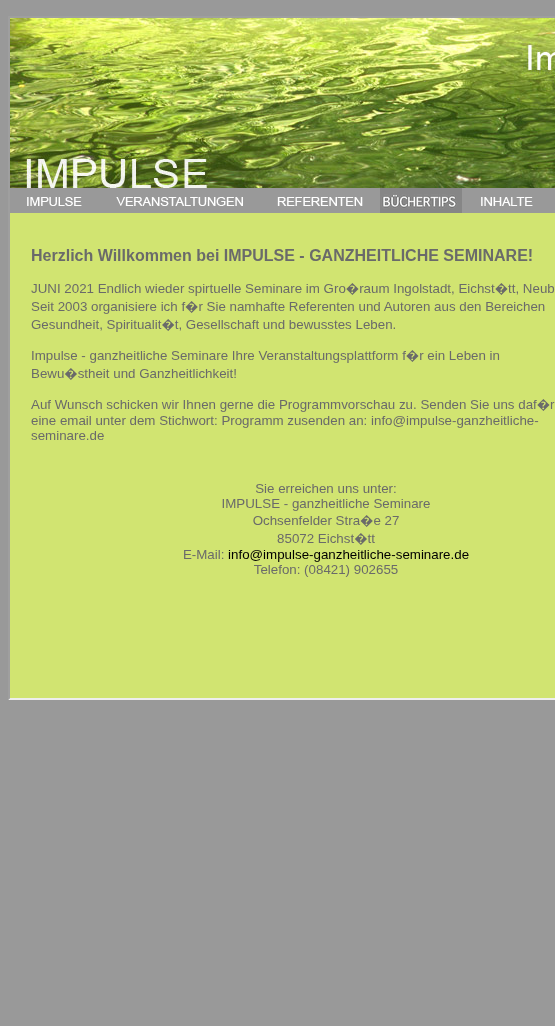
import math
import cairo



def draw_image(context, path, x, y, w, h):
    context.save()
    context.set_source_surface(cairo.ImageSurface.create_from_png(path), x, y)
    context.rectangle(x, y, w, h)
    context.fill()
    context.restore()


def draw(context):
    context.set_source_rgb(153 / 255, 153 / 255, 153 / 255)
    context.paint()
    context.set_source_rgb(159 / 255, 159 / 255, 159 / 255)
    context.new_path()
    context.move_to(8, 16)
    context.line_to(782, 16)
    context.line_to(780, 18)
    context.line_to(10, 18)
    context.close_path()
    context.fill()
    context.set_source_rgb(238 / 255, 238 / 255, 238 / 255)
    context.new_path()
    context.move_to(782, 700)
    context.line_to(8, 700)
    context.line_to(10, 698)
    context.line_to(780, 698)
    context.close_path()
    context.fill()
    context.set_source_rgb(159 / 255, 159 / 255, 159 / 255)
    context.new_path()
    context.move_to(8, 700)
    context.line_to(8, 16)
    context.line_to(10, 18)
    context.line_to(10, 698)
    context.close_path()
    context.fill()
    draw_image(context, "images/1.png", 10, 18, 545, 680)


surface = cairo.ImageSurface(cairo.Format.RGB24, 555, 1026)
context = cairo.Context(surface)
options = cairo.FontOptions()
options.set_hint_metrics(cairo.HintMetrics.OFF)
options.set_hint_style(cairo.HintStyle.NONE)
context.set_font_options(options)
context.set_miter_limit(4)
draw(context)
surface.write_to_png("out.png")
